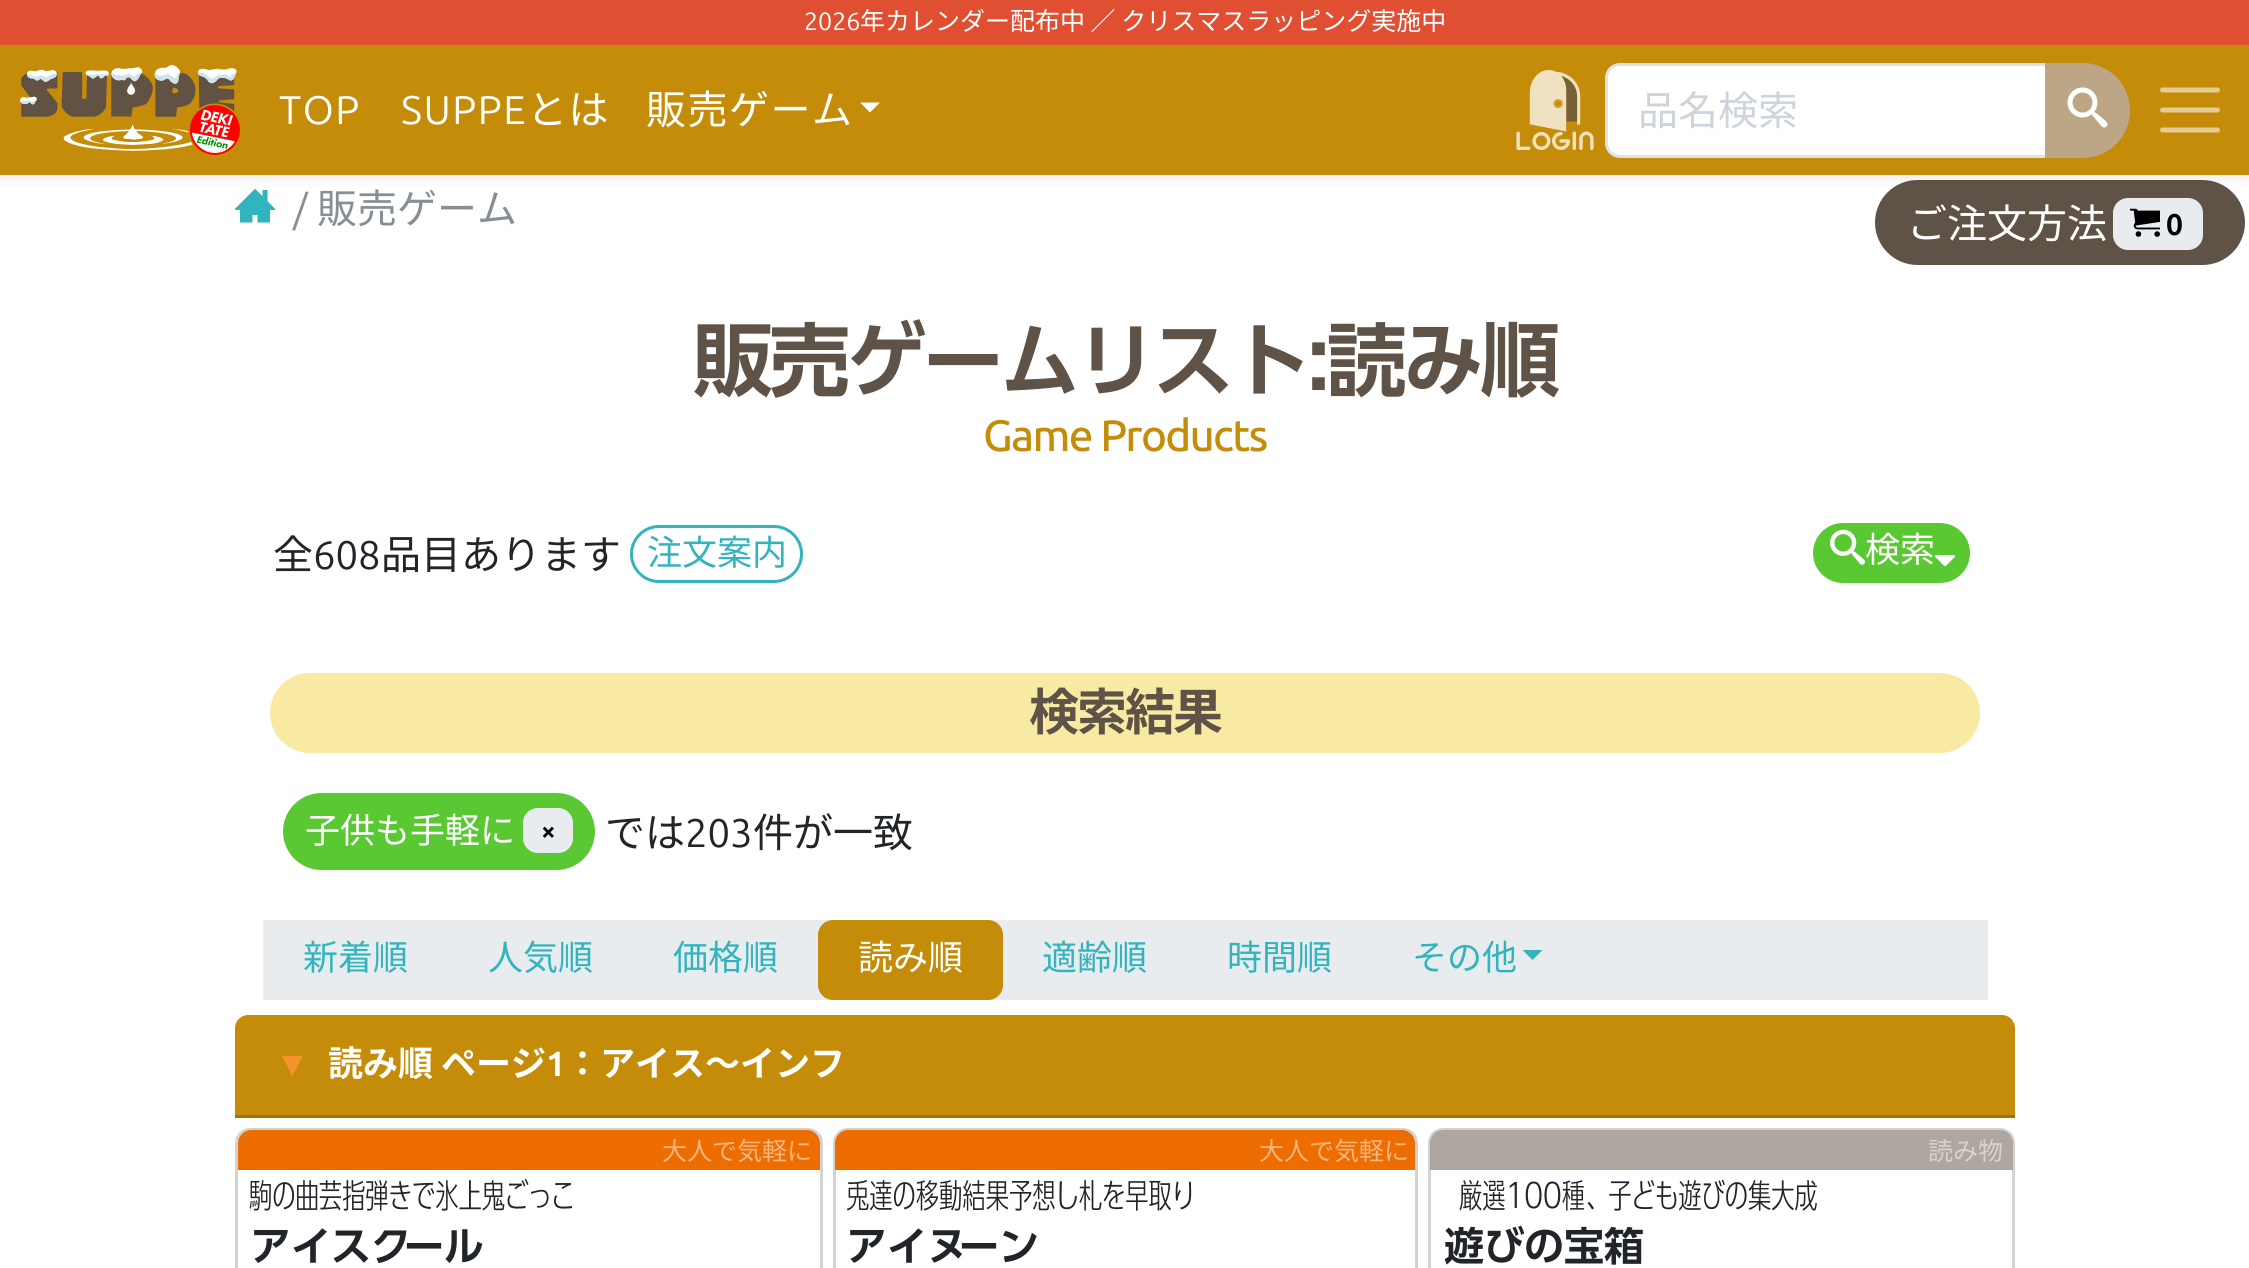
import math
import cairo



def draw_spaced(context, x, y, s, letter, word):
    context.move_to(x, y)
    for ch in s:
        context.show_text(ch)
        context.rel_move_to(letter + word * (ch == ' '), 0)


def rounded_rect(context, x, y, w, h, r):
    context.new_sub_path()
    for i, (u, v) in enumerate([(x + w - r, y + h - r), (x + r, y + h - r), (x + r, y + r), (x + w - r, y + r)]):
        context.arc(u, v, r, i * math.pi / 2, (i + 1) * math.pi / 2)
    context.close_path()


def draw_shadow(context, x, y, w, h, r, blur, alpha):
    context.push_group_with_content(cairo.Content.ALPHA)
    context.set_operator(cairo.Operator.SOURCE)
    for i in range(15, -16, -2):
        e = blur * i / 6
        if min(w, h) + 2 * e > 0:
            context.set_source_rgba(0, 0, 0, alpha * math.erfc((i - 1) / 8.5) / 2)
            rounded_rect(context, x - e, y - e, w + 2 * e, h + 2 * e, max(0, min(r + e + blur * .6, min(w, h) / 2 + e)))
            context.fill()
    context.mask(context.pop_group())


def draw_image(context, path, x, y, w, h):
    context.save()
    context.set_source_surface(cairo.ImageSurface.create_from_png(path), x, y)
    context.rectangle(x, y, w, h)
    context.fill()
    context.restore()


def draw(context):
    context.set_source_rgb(1, 1, 1)
    context.paint()
    draw_image(context, "images/4.png", 235, 188, 40, 35)
    context.set_source_rgb(94 / 255, 83 / 255, 70 / 255)
    rounded_rect(context, 1876.5, 181.5, 367, 82, 41)
    context.fill_preserve()
    context.set_line_width(3)
    context.stroke()
    context.set_source_rgb(0, 0, 0)
    draw_shadow(context, 0, 5, 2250, 175, 0, 5, 0.07)
    context.set_source_rgb(225 / 255, 79 / 255, 50 / 255)
    context.rectangle(0, 0, 2249, 45)
    context.fill()
    context.set_source_rgb(196 / 255, 140 / 255, 8 / 255)
    context.rectangle(0, 45, 2249, 130)
    context.fill()
    draw_image(context, "images/1.png", 20, 65, 220, 90)
    context.set_source_rgb(1, 1, 1)
    context.new_path()
    context.move_to(860, 102.5)
    context.line_to(880, 102.5)
    context.line_to(870, 112.5)
    context.close_path()
    context.fill()
    draw_image(context, "images/2.png", 1516, 70, 78, 80)
    context.new_path()
    context.move_to(1620, 64.5)
    context.line_to(2046.5, 64.5)
    context.line_to(2046.5, 156.5)
    context.line_to(1620, 156.5)
    context.curve_to(1612.5, 156.5, 1606.5, 150.5, 1606.5, 143)
    context.line_to(1606.5, 78)
    context.curve_to(1606.5, 70.5, 1612.5, 64.5, 1620, 64.5)
    context.close_path()
    context.fill_preserve()
    context.set_source_rgb(222 / 255, 226 / 255, 230 / 255)
    context.stroke()
    context.set_source_rgb(188 / 255, 166 / 255, 133 / 255)
    context.new_path()
    context.move_to(2046.5, 64.5)
    context.line_to(2082.5, 64.5)
    context.curve_to(2108, 64.5, 2128.5, 85, 2128.5, 110.5)
    context.curve_to(2128.5, 136, 2108, 156.5, 2082.5, 156.5)
    context.line_to(2046.5, 156.5)
    context.close_path()
    context.fill_preserve()
    context.stroke()
    draw_image(context, "images/3.png", 2067, 87, 41, 41)
    context.new_path()
    context.move_to(2162.5, 90)
    context.line_to(2217.5, 90)
    context.move_to(2162.5, 110)
    context.line_to(2217.5, 110)
    context.move_to(2162.5, 130)
    context.line_to(2217.5, 130)
    context.set_source_rgb(228 / 255, 203 / 255, 144 / 255)
    context.set_line_width(5)
    context.set_line_cap(cairo.LineCap.ROUND)
    context.stroke()
    context.set_source_rgb(233 / 255, 236 / 255, 239 / 255)
    rounded_rect(context, 2113, 198, 90, 52, 15)
    context.fill()
    draw_image(context, "images/5.png", 2130, 208, 30, 29)
    rounded_rect(context, 631.5, 526.5, 170, 55, 27.5)
    context.set_source_rgb(50 / 255, 180 / 255, 190 / 255)
    context.set_line_width(3)
    context.set_line_cap(cairo.LineCap.BUTT)
    context.stroke()
    context.set_source_rgb(90 / 255, 200 / 255, 50 / 255)
    rounded_rect(context, 1814.5, 524.5, 154, 57, 28.5)
    context.fill_preserve()
    context.stroke()
    draw_image(context, "images/6.png", 1830, 529, 35, 36)
    draw_image(context, "images/7.png", 1935, 555, 20, 12)
    context.set_source_rgb(248 / 255, 234 / 255, 163 / 255)
    rounded_rect(context, 270, 673, 1710, 80, 40)
    context.fill()
    context.set_source_rgb(90 / 255, 200 / 255, 50 / 255)
    rounded_rect(context, 284.5, 794.5, 309, 74, 37)
    context.fill_preserve()
    context.stroke()
    context.set_source_rgb(233 / 255, 236 / 255, 239 / 255)
    rounded_rect(context, 523, 808, 50, 45, 15)
    context.fill()
    context.rectangle(263, 920, 1725, 80)
    context.fill()
    context.set_source_rgb(196 / 255, 140 / 255, 8 / 255)
    rounded_rect(context, 818, 920, 185, 80, 15)
    context.fill()
    context.set_source_rgb(50 / 255, 180 / 255, 190 / 255)
    context.new_path()
    context.move_to(1522.5, 950)
    context.line_to(1542.5, 950)
    context.line_to(1532.5, 960)
    context.close_path()
    context.fill()
    context.set_source_rgb(196 / 255, 140 / 255, 8 / 255)
    context.new_path()
    context.move_to(248, 1015)
    context.line_to(2002, 1015)
    context.curve_to(2009, 1015, 2015, 1021, 2015, 1028)
    context.line_to(2015, 1118)
    context.line_to(235, 1118)
    context.line_to(235, 1028)
    context.curve_to(235, 1021, 241, 1015, 248, 1015)
    context.close_path()
    context.fill()
    context.set_source_rgb(162 / 255, 115 / 255, 7 / 255)
    context.rectangle(235, 1115, 1780, 3)
    context.fill()
    rounded_rect(context, 236.5, 1129.5, 585, 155, 13.5)
    context.set_source_rgb(210 / 255, 210 / 255, 210 / 255)
    context.stroke()
    context.set_source_rgb(237 / 255, 109 / 255, 0)
    context.new_path()
    context.move_to(251, 1130)
    context.line_to(807, 1130)
    context.curve_to(814, 1130, 820, 1136, 820, 1143)
    context.line_to(820, 1170)
    context.line_to(238, 1170)
    context.line_to(238, 1143)
    context.curve_to(238, 1136, 244, 1130, 251, 1130)
    context.close_path()
    context.fill()
    rounded_rect(context, 834.5, 1129.5, 582, 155, 13.5)
    context.set_source_rgb(210 / 255, 210 / 255, 210 / 255)
    context.stroke()
    context.set_source_rgb(237 / 255, 109 / 255, 0)
    context.new_path()
    context.move_to(848, 1130)
    context.line_to(1402, 1130)
    context.curve_to(1409, 1130, 1415, 1136, 1415, 1143)
    context.line_to(1415, 1170)
    context.line_to(835, 1170)
    context.line_to(835, 1143)
    context.curve_to(835, 1136, 841, 1130, 848, 1130)
    context.close_path()
    context.fill()
    rounded_rect(context, 1429.5, 1129.5, 584, 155, 13.5)
    context.set_source_rgb(210 / 255, 210 / 255, 210 / 255)
    context.stroke()
    context.set_source_rgb(174 / 255, 167 / 255, 159 / 255)
    context.new_path()
    context.move_to(1443, 1130)
    context.line_to(2000, 1130)
    context.curve_to(2007, 1130, 2013, 1136, 2013, 1143)
    context.line_to(2013, 1170)
    context.line_to(1430, 1170)
    context.line_to(1430, 1143)
    context.curve_to(1430, 1136, 1436, 1130, 1443, 1130)
    context.close_path()
    context.fill()
    context.select_font_face("Ubuntu")
    context.set_font_size(25)
    context.set_source_rgb(1, 1, 1)
    context.move_to(804, 30)
    context.show_text("2026")
    context.select_font_face("Noto Sans JP")
    context.move_to(860, 30)
    context.show_text("年カレンダー配布中 ／ クリスマスラッピング実施中")
    context.select_font_face("Ubuntu")
    context.set_font_size(40)
    draw_spaced(context, 279, 124, "TOP", 1.5, 0)
    draw_spaced(context, 401, 124, "SUPPE", 1.5, 0)
    context.select_font_face("Noto Sans JP")
    draw_spaced(context, 527, 124, "とは", 1.5, 0)
    draw_spaced(context, 646, 124, "販売ゲーム", 1.5, 0)
    context.set_source_rgb(206 / 255, 212 / 255, 218 / 255)
    context.move_to(1638, 125)
    context.show_text("品名検索")
    context.select_font_face("Ubuntu")
    context.set_source_rgb(134 / 255, 142 / 255, 150 / 255)
    context.move_to(293, 223)
    context.show_text("/")
    context.select_font_face("Noto Sans JP")
    context.move_to(317, 223)
    context.show_text("販売ゲーム")
    context.set_source_rgb(1, 1, 1)
    context.move_to(1907, 238)
    context.show_text("ご注文方法")
    context.select_font_face("Ubuntu", cairo.FontSlant.NORMAL, cairo.FontWeight.BOLD)
    context.set_font_size(30)
    context.set_source_rgb(0, 0, 0)
    context.move_to(2166, 235)
    context.show_text("0")
    context.select_font_face("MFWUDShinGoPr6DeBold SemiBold")
    context.set_font_size(80)
    context.set_source_rgb(94 / 255, 83 / 255, 70 / 255)
    draw_spaced(context, 693, 390, "販売ゲームリスト:読み順", -3.25, 0)
    context.select_font_face("Ubuntu Medium")
    context.set_font_size(44)
    context.set_source_rgb(196 / 255, 140 / 255, 8 / 255)
    draw_spaced(context, 983, 451, "Game Products", -1.75, 0)
    context.select_font_face("Noto Sans JP")
    context.set_font_size(40)
    context.set_source_rgb(33 / 255, 37 / 255, 41 / 255)
    context.move_to(273, 569)
    context.show_text("全")
    context.select_font_face("Ubuntu")
    context.move_to(313, 569)
    context.show_text("608")
    context.select_font_face("Noto Sans JP")
    context.move_to(381, 569)
    context.show_text("品目あります")
    context.set_font_size(35)
    context.set_source_rgb(50 / 255, 180 / 255, 190 / 255)
    context.move_to(647, 565)
    context.show_text("注文案内")
    context.set_source_rgb(1, 1, 1)
    context.move_to(1865, 562)
    context.show_text("検索")
    context.select_font_face("Noto Sans JP", cairo.FontSlant.NORMAL, cairo.FontWeight.BOLD)
    context.set_font_size(50)
    context.set_source_rgb(94 / 255, 83 / 255, 70 / 255)
    draw_spaced(context, 1029, 730, "検索結果", -2, 0)
    context.select_font_face("Noto Sans JP")
    context.set_font_size(35)
    context.set_source_rgb(1, 1, 1)
    context.move_to(305, 843)
    context.show_text("子供も手軽に")
    context.select_font_face("Ubuntu", cairo.FontSlant.NORMAL, cairo.FontWeight.BOLD)
    context.set_font_size(26)
    context.set_source_rgb(0, 0, 0)
    context.move_to(541, 840)
    context.show_text("×")
    context.select_font_face("Noto Sans JP")
    context.set_font_size(40)
    context.set_source_rgb(33 / 255, 37 / 255, 41 / 255)
    context.move_to(605, 847)
    context.show_text("では")
    context.select_font_face("Ubuntu")
    context.move_to(685, 847)
    context.show_text("203")
    context.select_font_face("Noto Sans JP")
    context.move_to(753, 847)
    context.show_text("件が一致")
    context.set_font_size(35)
    context.set_source_rgb(50 / 255, 180 / 255, 190 / 255)
    context.move_to(303, 970)
    context.show_text("新着順")
    context.move_to(488, 970)
    context.show_text("人気順")
    context.move_to(673, 970)
    context.show_text("価格順")
    context.set_source_rgb(1, 1, 1)
    context.move_to(858, 970)
    context.show_text("読み順")
    context.set_source_rgb(50 / 255, 180 / 255, 190 / 255)
    context.move_to(1042, 970)
    context.show_text("適齢順")
    context.move_to(1227, 970)
    context.show_text("時間順")
    context.move_to(1412, 970)
    context.show_text("その他")
    context.select_font_face("Liberation Sans", cairo.FontSlant.NORMAL, cairo.FontWeight.BOLD)
    context.set_source_rgb(244 / 255, 148 / 255, 46 / 255)
    context.move_to(275, 1076)
    context.show_text("▼")
    context.select_font_face("Noto Sans JP", cairo.FontSlant.NORMAL, cairo.FontWeight.BOLD)
    context.set_source_rgb(1, 1, 1)
    context.move_to(328, 1076)
    context.show_text("読み順 ページ")
    context.select_font_face("Ubuntu", cairo.FontSlant.NORMAL, cairo.FontWeight.BOLD)
    context.move_to(546, 1076)
    context.show_text("1")
    context.select_font_face("Noto Sans JP", cairo.FontSlant.NORMAL, cairo.FontWeight.BOLD)
    context.move_to(565, 1076)
    context.show_text("：アイス〜インフ")
    context.select_font_face("Noto Sans JP")
    context.set_font_size(25)
    context.set_source_rgb(246 / 255, 182 / 255, 128 / 255)
    context.move_to(662, 1160)
    context.show_text("大人で気軽に")
    context.select_font_face("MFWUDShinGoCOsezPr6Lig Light")
    context.set_font_size(33.25)
    context.set_source_rgb(33 / 255, 37 / 255, 41 / 255)
    context.move_to(249, 1208)
    context.show_text("駒の曲芸指弾きで氷上鬼ごっこ")
    context.select_font_face("MFWUDShinGoPr6DeBold SemiBold")
    context.set_font_size(40)
    context.move_to(251, 1261)
    context.show_text("アイスク")
    context.move_to(404, 1261)
    context.show_text("ール")
    context.select_font_face("Noto Sans JP")
    context.set_font_size(25)
    context.set_source_rgb(246 / 255, 182 / 255, 128 / 255)
    context.move_to(1259, 1160)
    context.show_text("大人で気軽に")
    context.select_font_face("MFWUDShinGoCOsezPr6Lig Light")
    context.set_font_size(33.25)
    context.set_source_rgb(33 / 255, 37 / 255, 41 / 255)
    context.move_to(846, 1208)
    context.show_text("兎達の移動結果予想し札を早取り")
    context.select_font_face("MFWUDShinGoPr6DeBold SemiBold")
    context.set_font_size(40)
    context.move_to(847, 1261)
    context.show_text("アイヌ")
    context.move_to(959, 1261)
    context.show_text("ーン")
    context.select_font_face("Noto Sans JP")
    context.set_font_size(25)
    context.set_source_rgb(215 / 255, 211 / 255, 207 / 255)
    context.move_to(1928, 1160)
    context.show_text("読み物")
    context.save()
    context.rectangle(1435, 1180, 578, 33)
    context.clip()
    context.select_font_face("MFWUDShinGoCOsezPr6Lig Light")
    context.set_font_size(33.25)
    context.set_source_rgb(33 / 255, 37 / 255, 41 / 255)
    context.move_to(1459, 1208)
    context.show_text("厳選100種、子ども遊びの集大成")
    context.restore()
    context.select_font_face("MFWUDShinGoPr6DeBold SemiBold")
    context.set_font_size(40)
    context.set_source_rgb(33 / 255, 37 / 255, 41 / 255)
    context.move_to(1444, 1261)
    context.show_text("遊びの宝箱")


surface = cairo.ImageSurface(cairo.Format.RGB24, 2249, 1268)
context = cairo.Context(surface)
options = cairo.FontOptions()
options.set_hint_metrics(cairo.HintMetrics.OFF)
options.set_hint_style(cairo.HintStyle.NONE)
context.set_font_options(options)
context.set_miter_limit(4)
draw(context)
surface.write_to_png("out.png")
